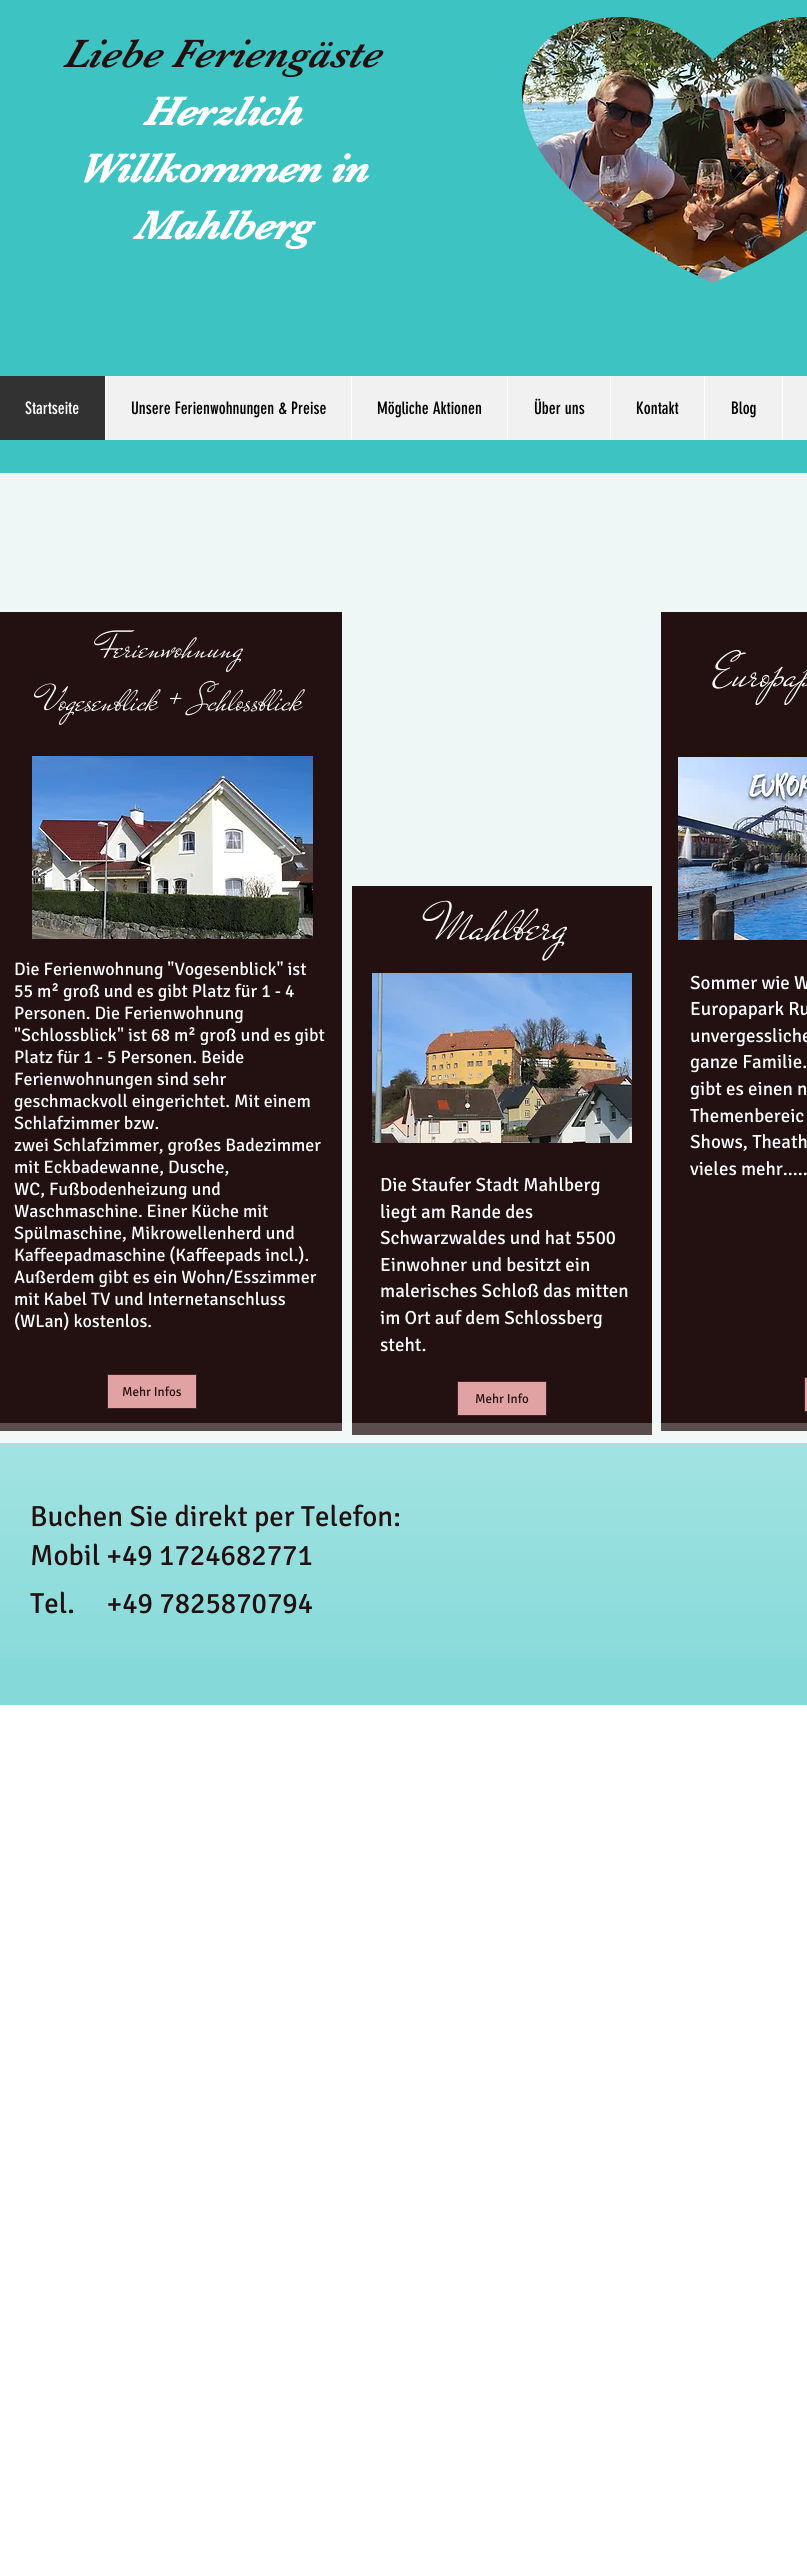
import math
import cairo



def draw_image(context, path, x, y, w, h):
    context.save()
    context.set_source_surface(cairo.ImageSurface.create_from_png(path), x, y)
    context.rectangle(x, y, w, h)
    context.fill()
    context.restore()


def draw(context):
    context.set_source_rgb(1, 1, 1)
    context.paint()
    context.set_source_rgb(60 / 255, 195 / 255, 194 / 255)
    context.rectangle(0, 0, 807, 473)
    context.fill()
    draw_image(context, "images/1.png", 522, 17, 285, 266)
    context.set_source_rgb(241 / 255, 241 / 255, 241 / 255)
    context.rectangle(106, 376, 701, 64)
    context.fill()
    context.set_source_rgb(50 / 255, 50 / 255, 50 / 255)
    context.rectangle(0, 376, 105, 64)
    context.fill()
    context.set_source_rgb(1, 1, 1)
    context.rectangle(105, 376, 1, 64)
    context.fill()
    context.rectangle(351, 376, 1, 64)
    context.fill()
    context.rectangle(507, 376, 1, 64)
    context.fill()
    context.rectangle(610, 376, 1, 64)
    context.fill()
    context.rectangle(704, 376, 1, 64)
    context.fill()
    context.rectangle(782, 376, 1, 64)
    context.fill()
    context.set_source_rgb(238 / 255, 246 / 255, 246 / 255)
    context.rectangle(0, 473, 807, 970)
    context.fill()
    context.set_source_rgb(35 / 255, 17 / 255, 17 / 255)
    context.rectangle(0, 612, 342, 819)
    context.fill()
    draw_image(context, "images/2.png", 32, 756, 281, 183)
    context.set_source_rgb(224 / 255, 162 / 255, 162 / 255)
    context.rectangle(107.5, 1374.5, 89, 34)
    context.fill_preserve()
    context.set_source_rgb(69 / 255, 34 / 255, 34 / 255)
    context.set_line_width(1)
    context.stroke()
    context.set_source_rgb(35 / 255, 17 / 255, 17 / 255)
    context.rectangle(352, 886, 300, 549)
    context.fill()
    draw_image(context, "images/3.png", 372, 973, 260, 170)
    context.set_source_rgb(224 / 255, 162 / 255, 162 / 255)
    context.rectangle(457.5, 1381.5, 89, 34)
    context.fill_preserve()
    context.set_source_rgb(69 / 255, 34 / 255, 34 / 255)
    context.stroke()
    context.set_source_rgb(35 / 255, 17 / 255, 17 / 255)
    context.rectangle(661, 612, 146, 819)
    context.fill()
    draw_image(context, "images/4.png", 678, 757, 129, 183)
    context.set_source_rgb(224 / 255, 162 / 255, 162 / 255)
    context.rectangle(804.5, 1377.5, 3, 34)
    context.fill_preserve()
    context.set_source_rgb(69 / 255, 34 / 255, 34 / 255)
    context.stroke()
    context.set_source_rgb(133 / 255, 218 / 255, 217 / 255)
    context.rectangle(0, 1443, 807, 262)
    context.fill()
    draw_image(context, "images/5.png", 0, 1423, 807, 236)
    context.select_font_face("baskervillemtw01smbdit", cairo.FontSlant.ITALIC)
    context.set_font_size(41)
    context.set_source_rgb(35 / 255, 17 / 255, 17 / 255)
    context.move_to(63, 67)
    context.show_text("Liebe Feriengäste")
    context.select_font_face("baskervillemtw01smbdit", cairo.FontSlant.ITALIC, cairo.FontWeight.BOLD)
    context.set_source_rgb(1, 1, 1)
    context.move_to(143, 125)
    context.show_text("Herzlich")
    context.move_to(78, 182)
    context.show_text("Willkommen in")
    context.move_to(134, 239)
    context.show_text("Mahlberg")
    context.select_font_face("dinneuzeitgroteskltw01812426")
    context.set_font_size(17)
    context.move_to(25, 414)
    context.show_text("Startseite")
    context.set_source_rgb(0, 0, 0)
    context.move_to(131, 414)
    context.show_text("Unsere Ferienwohnungen & Preise")
    context.move_to(377, 414)
    context.show_text("Mögliche Aktionen")
    context.move_to(534, 414)
    context.show_text("Über uns")
    context.move_to(636, 414)
    context.show_text("Kontakt")
    context.move_to(731, 414)
    context.show_text("Blog")
    context.select_font_face("Mr De Haviland")
    context.set_font_size(38)
    context.set_source_rgb(1, 1, 1)
    context.move_to(99, 657)
    context.show_text("Ferienwohnung")
    context.move_to(41, 710)
    context.show_text("Vogesenblick  + Schlossblick")
    context.select_font_face("Signika")
    context.set_font_size(18)
    context.move_to(14, 975)
    context.show_text("Die Ferienwohnung \"Vogesenblick\" ist")
    context.move_to(14, 997)
    context.show_text("55 m² groß und es gibt Platz für 1 - 4")
    context.move_to(14, 1019)
    context.show_text("Personen. Die Ferienwohnung")
    context.move_to(14, 1041)
    context.show_text("\"Schlossblick\" ist 68 m² groß und es gibt")
    context.move_to(14, 1063)
    context.show_text("Platz für 1 - 5 Personen. Beide")
    context.move_to(14, 1085)
    context.show_text("Ferienwohnungen sind sehr")
    context.move_to(14, 1107)
    context.show_text("geschmackvoll eingerichtet. Mit einem")
    context.move_to(14, 1129)
    context.show_text("Schlafzimmer bzw.")
    context.move_to(14, 1151)
    context.show_text("zwei Schlafzimmer, großes Badezimmer")
    context.move_to(14, 1173)
    context.show_text("mit Eckbadewanne, Dusche,")
    context.move_to(14, 1195)
    context.show_text("WC, Fußbodenheizung und")
    context.move_to(14, 1217)
    context.show_text("Waschmaschine. Einer Küche mit")
    context.move_to(14, 1239)
    context.show_text("Spülmaschine, Mikrowellenherd und")
    context.move_to(14, 1261)
    context.show_text("Kaffeepadmaschine (Kaffeepads incl.).")
    context.move_to(14, 1283)
    context.show_text("Außerdem gibt es ein Wohn/Esszimmer")
    context.move_to(14, 1305)
    context.show_text("mit Kabel TV und Internetanschluss")
    context.move_to(14, 1327)
    context.show_text("(WLan) kostenlos.")
    context.set_font_size(13)
    context.set_source_rgb(35 / 255, 17 / 255, 17 / 255)
    context.move_to(122, 1396)
    context.show_text("Mehr Infos")
    context.select_font_face("Mr De Haviland")
    context.set_font_size(55)
    context.set_source_rgb(1, 1, 1)
    context.move_to(436, 939)
    context.show_text("Mahlberg")
    context.select_font_face("Signika")
    context.set_font_size(19)
    context.move_to(380, 1191)
    context.show_text("Die Staufer Stadt Mahlberg")
    context.move_to(380, 1218)
    context.show_text("liegt am Rande des")
    context.move_to(380, 1244)
    context.show_text("Schwarzwaldes und hat 5500")
    context.move_to(380, 1271)
    context.show_text("Einwohner und besitzt ein")
    context.move_to(380, 1297)
    context.show_text("malerisches Schloß das mitten")
    context.move_to(380, 1324)
    context.show_text("im Ort auf dem Schlossberg")
    context.move_to(380, 1351)
    context.show_text("steht.")
    context.set_font_size(13)
    context.set_source_rgb(35 / 255, 17 / 255, 17 / 255)
    context.move_to(475, 1403)
    context.show_text("Mehr Info")
    context.select_font_face("Mr De Haviland")
    context.set_font_size(49)
    context.set_source_rgb(1, 1, 1)
    context.move_to(713, 686)
    context.show_text("Europap")
    context.select_font_face("Signika")
    context.set_font_size(19)
    context.move_to(690, 989)
    context.show_text("Sommer wie W")
    context.move_to(690, 1015)
    context.show_text("Europapark Ru")
    context.move_to(690, 1042)
    context.show_text("unvergessliche")
    context.move_to(690, 1068)
    context.show_text("ganze Familie.")
    context.move_to(690, 1095)
    context.show_text("gibt es einen n")
    context.move_to(690, 1122)
    context.show_text("Themenbereic")
    context.move_to(690, 1148)
    context.show_text("Shows, Theath")
    context.move_to(690, 1175)
    context.show_text("vieles mehr.....")
    context.set_font_size(29)
    context.set_source_rgb(35 / 255, 17 / 255, 17 / 255)
    context.move_to(30, 1526)
    context.show_text("Buchen Sie direkt per Telefon:")
    context.move_to(30, 1565)
    context.show_text("Mobil +49 1724682771")
    context.move_to(30, 1613)
    context.show_text("Tel.     +49 7825870794")


surface = cairo.ImageSurface(cairo.Format.RGB24, 807, 2554)
context = cairo.Context(surface)
options = cairo.FontOptions()
options.set_hint_metrics(cairo.HintMetrics.OFF)
options.set_hint_style(cairo.HintStyle.NONE)
context.set_font_options(options)
context.set_miter_limit(4)
draw(context)
surface.write_to_png("out.png")
